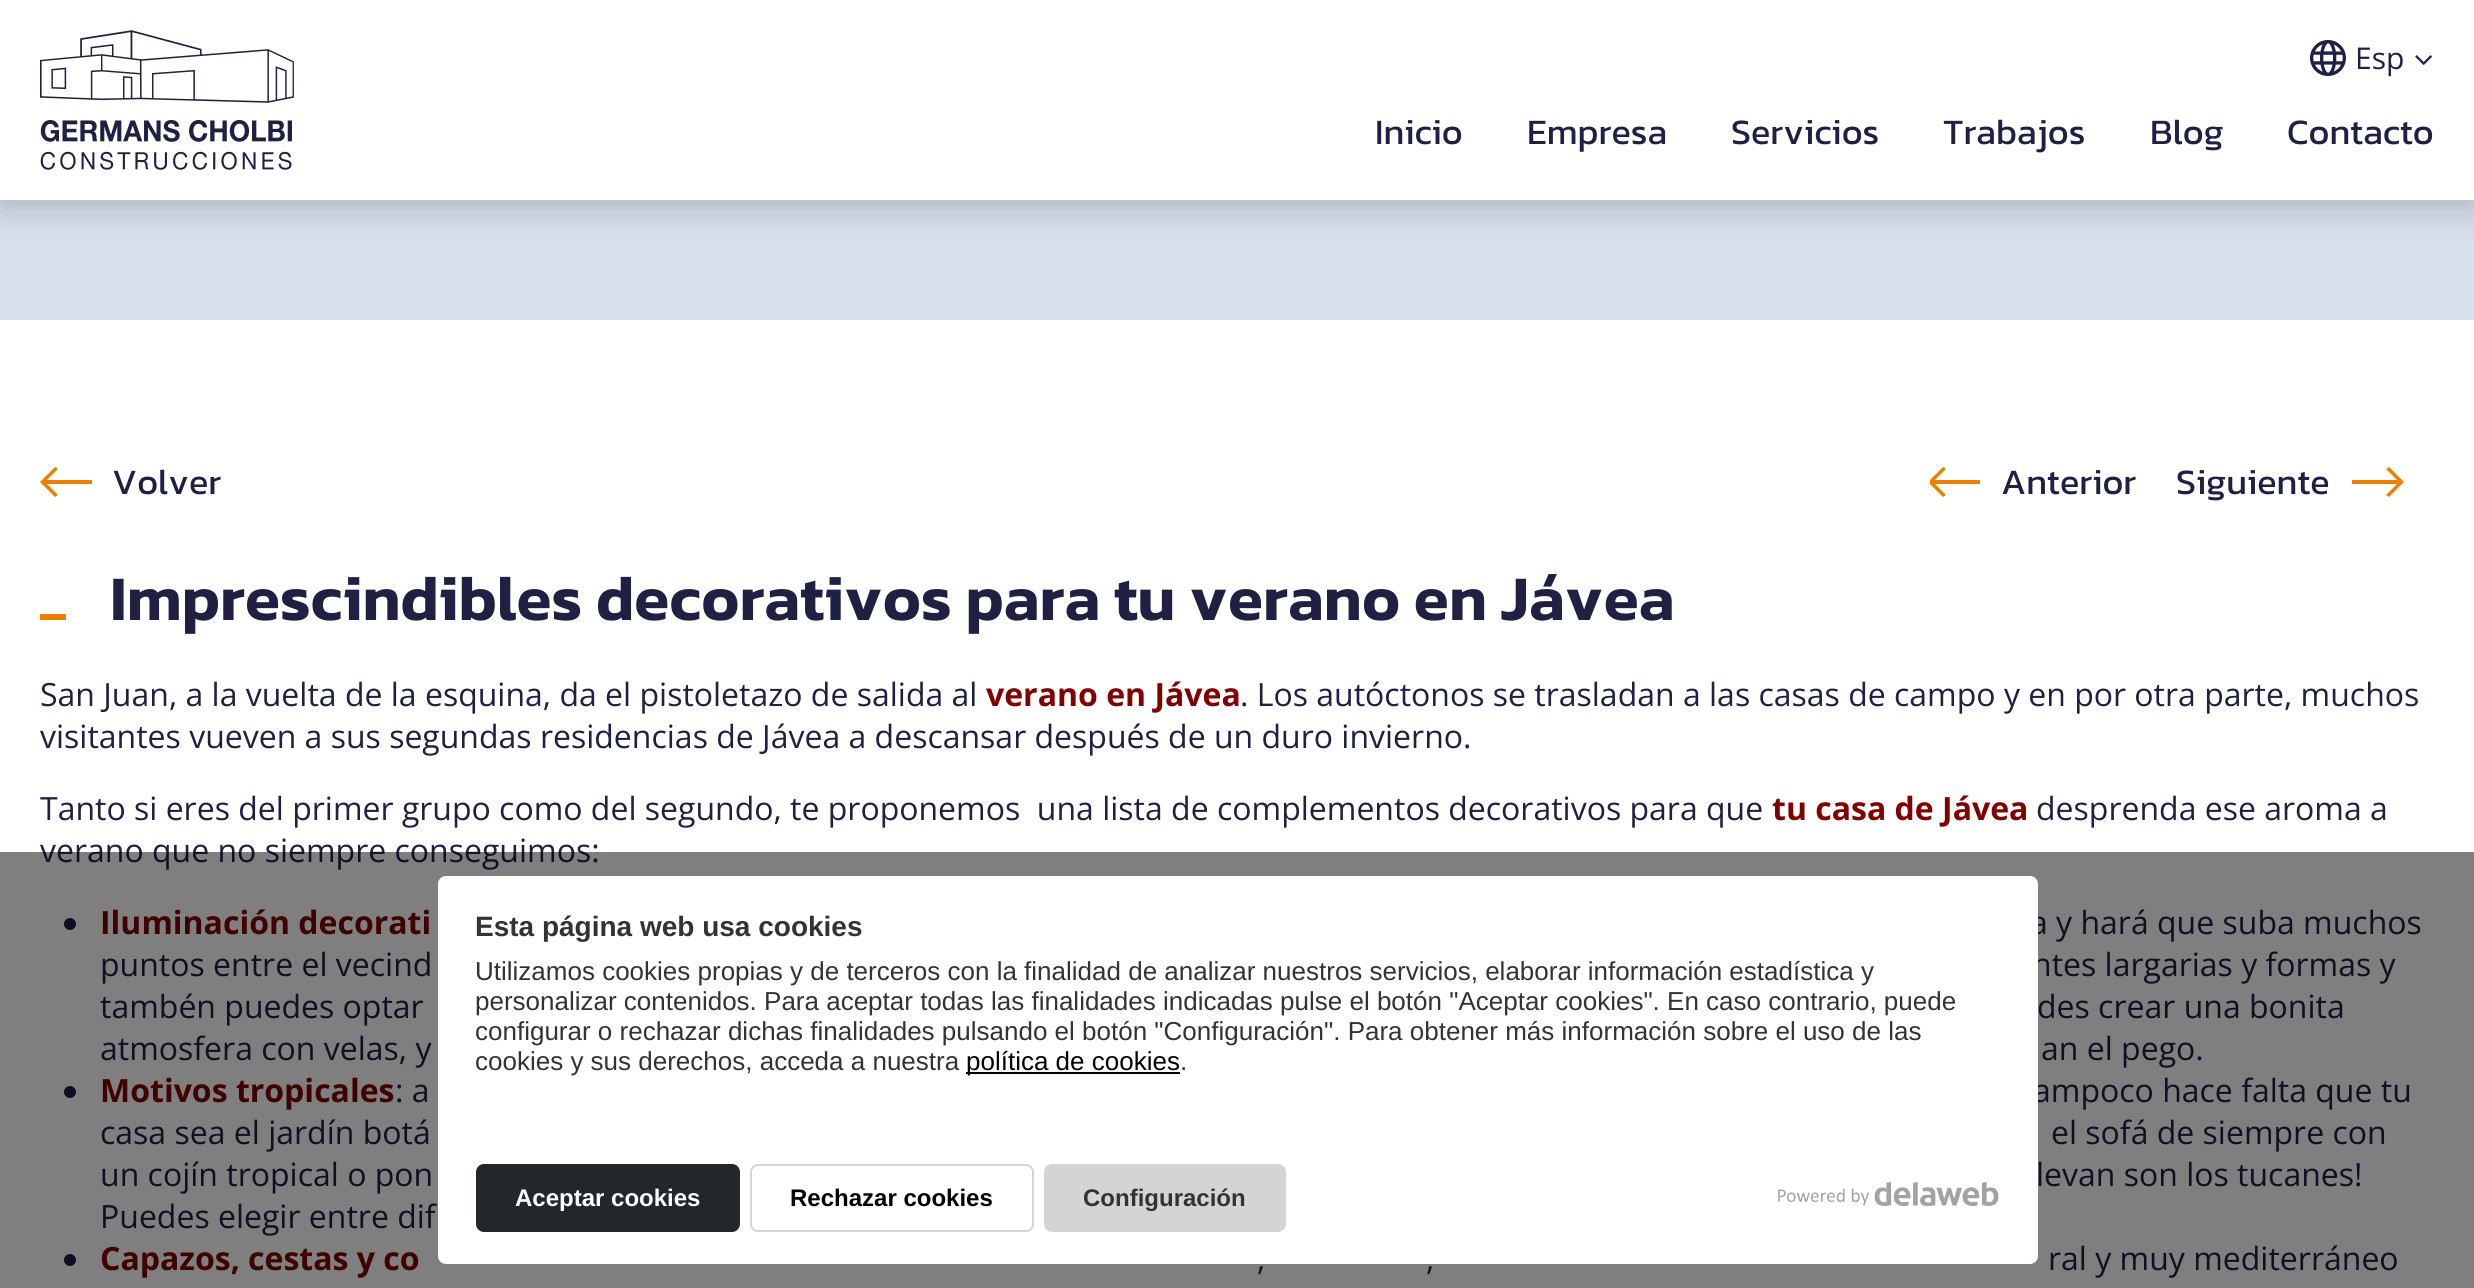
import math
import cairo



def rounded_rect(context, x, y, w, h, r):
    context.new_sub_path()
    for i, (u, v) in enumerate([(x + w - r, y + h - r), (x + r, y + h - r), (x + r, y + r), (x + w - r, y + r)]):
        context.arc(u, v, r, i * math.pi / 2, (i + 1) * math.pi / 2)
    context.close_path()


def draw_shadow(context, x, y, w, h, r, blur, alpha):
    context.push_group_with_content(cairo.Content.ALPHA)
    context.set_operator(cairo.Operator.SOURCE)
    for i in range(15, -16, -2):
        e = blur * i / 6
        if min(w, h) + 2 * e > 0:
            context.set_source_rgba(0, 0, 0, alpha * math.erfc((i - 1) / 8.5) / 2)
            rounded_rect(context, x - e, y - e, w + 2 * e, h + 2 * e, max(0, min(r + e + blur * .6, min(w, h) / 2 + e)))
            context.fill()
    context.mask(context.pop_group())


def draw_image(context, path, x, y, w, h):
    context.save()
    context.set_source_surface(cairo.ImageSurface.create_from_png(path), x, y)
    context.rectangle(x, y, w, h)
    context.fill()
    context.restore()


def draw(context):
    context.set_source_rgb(216 / 255, 224 / 255, 236 / 255)
    context.paint()
    context.set_source_rgb(0, 0, 0)
    draw_shadow(context, 0, 8, 2474, 200, 0, 18, 0.2)
    context.set_source_rgb(1, 1, 1)
    context.rectangle(0, 0, 2474, 200)
    context.fill()
    draw_image(context, "images/1.png", 40, 30, 254, 140)
    draw_image(context, "images/2.png", 2310, 40, 36, 36)
    draw_image(context, "images/3.png", 2415, 55, 17, 10)
    context.rectangle(0, 320, 2474, 968)
    context.fill()
    context.set_source_rgb(235 / 255, 127 / 255, 0)
    context.new_path()
    context.move_to(55, 497)
    context.line_to(58, 495)
    context.line_to(47, 484)
    context.line_to(92, 484)
    context.line_to(92, 480)
    context.line_to(47, 480)
    context.line_to(58, 469)
    context.line_to(55, 467)
    context.line_to(40, 482)
    context.close_path()
    context.fill()
    context.save()
    context.rectangle(1930, 466, 52, 32)
    context.clip()
    context.new_path()
    context.move_to(1943, 497)
    context.line_to(1946, 495)
    context.line_to(1935, 484)
    context.line_to(1980, 484)
    context.line_to(1980, 480)
    context.line_to(1935, 480)
    context.line_to(1946, 469)
    context.line_to(1943, 467)
    context.line_to(1928, 482)
    context.close_path()
    context.fill()
    context.restore()
    context.new_path()
    context.move_to(2389, 497)
    context.line_to(2386, 495)
    context.line_to(2397, 484)
    context.line_to(2352, 484)
    context.line_to(2352, 480)
    context.line_to(2397, 480)
    context.line_to(2386, 469)
    context.line_to(2389, 467)
    context.line_to(2404, 482)
    context.close_path()
    context.fill()
    context.rectangle(40, 614, 26, 6)
    context.fill()
    context.set_source_rgb(31 / 255, 32 / 255, 66 / 255)
    context.arc(70, 924, 6, 0, 2 * math.pi)
    context.fill()
    context.arc(70, 1092, 6, 0, 2 * math.pi)
    context.fill()
    context.arc(70, 1260, 6, 0, 2 * math.pi)
    context.fill()
    context.select_font_face("Open Sans")
    context.set_font_size(30)
    context.move_to(2355, 69)
    context.show_text("Esp")
    context.select_font_face("Kanit")
    context.set_font_size(36)
    context.move_to(1375, 144)
    context.show_text("Inicio")
    context.move_to(1527, 144)
    context.show_text("Empresa")
    context.move_to(1731, 144)
    context.show_text("Servicios")
    context.move_to(1943, 144)
    context.show_text("Trabajos")
    context.move_to(2150, 144)
    context.show_text("Blog")
    context.move_to(2287, 144)
    context.show_text("Contacto")
    context.move_to(112, 494)
    context.show_text("Volver")
    context.move_to(2001, 494)
    context.show_text("Anterior")
    context.move_to(2176, 494)
    context.show_text("Siguiente")
    context.select_font_face("Kanit SemiBold")
    context.set_font_size(64)
    context.move_to(110, 620)
    context.show_text("Imprescindibles decorativos para tu verano en Jávea")
    context.select_font_face("Open Sans")
    context.set_font_size(32)
    context.move_to(40, 706)
    context.show_text("San Juan, a la vuelta de la esquina, da el pistoletazo de salida al")
    context.select_font_face("Open Sans", cairo.FontSlant.NORMAL, cairo.FontWeight.BOLD)
    context.set_source_rgb(128 / 255, 0, 0)
    context.move_to(986, 706)
    context.show_text("verano en Jávea")
    context.select_font_face("Open Sans")
    context.set_source_rgb(31 / 255, 32 / 255, 66 / 255)
    context.move_to(1240, 706)
    context.show_text(". Los autóctonos se trasladan a las casas de campo y en por otra parte, muchos")
    context.move_to(40, 748)
    context.show_text("visitantes vueven a sus segundas residencias de Jávea a descansar después de un duro invierno.")
    context.move_to(40, 820)
    context.show_text("Tanto si eres del primer grupo como del segundo, te proponemos  una lista de complementos decorativos para que")
    context.select_font_face("Open Sans", cairo.FontSlant.NORMAL, cairo.FontWeight.BOLD)
    context.set_source_rgb(128 / 255, 0, 0)
    context.move_to(1772, 820)
    context.show_text("tu casa de Jávea")
    context.select_font_face("Open Sans")
    context.set_source_rgb(31 / 255, 32 / 255, 66 / 255)
    context.move_to(2036, 820)
    context.show_text("desprenda ese aroma a")
    context.move_to(40, 862)
    context.show_text("verano que no siempre conseguimos:")
    context.select_font_face("Open Sans", cairo.FontSlant.NORMAL, cairo.FontWeight.BOLD)
    context.set_source_rgb(128 / 255, 0, 0)
    context.move_to(100, 934)
    context.show_text("Iluminación decorati")
    context.select_font_face("Open Sans")
    context.set_source_rgb(31 / 255, 32 / 255, 66 / 255)
    context.move_to(2030, 934)
    context.show_text("a y hará que suba muchos")
    context.move_to(100, 976)
    context.show_text("puntos entre el vecind")
    context.move_to(2032, 976)
    context.show_text("ntes largarias y formas y")
    context.move_to(100, 1018)
    context.show_text("tambén puedes optar")
    context.move_to(2037, 1018)
    context.show_text("des crear una bonita")
    context.move_to(100, 1060)
    context.show_text("atmosfera con velas, y")
    context.move_to(2041, 1060)
    context.show_text("an el pego.")
    context.select_font_face("Open Sans", cairo.FontSlant.NORMAL, cairo.FontWeight.BOLD)
    context.set_source_rgb(128 / 255, 0, 0)
    context.move_to(100, 1102)
    context.show_text("Motivos tropicales")
    context.select_font_face("Open Sans")
    context.set_source_rgb(31 / 255, 32 / 255, 66 / 255)
    context.move_to(395, 1102)
    context.show_text(": a")
    context.move_to(2033, 1102)
    context.show_text("ampoco hace falta que tu")
    context.move_to(100, 1144)
    context.show_text("casa sea el jardín botá")
    context.move_to(2051, 1144)
    context.show_text("el sofá de siempre con")
    context.move_to(100, 1186)
    context.show_text("un cojín tropical o pon")
    context.move_to(2036, 1186)
    context.show_text("levan son los tucanes!")
    context.move_to(100, 1228)
    context.show_text("Puedes elegir entre dif")
    context.select_font_face("Open Sans", cairo.FontSlant.NORMAL, cairo.FontWeight.BOLD)
    context.set_source_rgb(128 / 255, 0, 0)
    context.move_to(100, 1270)
    context.show_text("Capazos, cestas y co")
    context.select_font_face("Open Sans")
    context.set_source_rgb(31 / 255, 32 / 255, 66 / 255)
    context.move_to(2048, 1270)
    context.show_text("ral y muy mediterráneo")
    context.move_to(1257, 1270)
    context.show_text(",")
    context.move_to(1426, 1270)
    context.show_text(",")
    context.set_source_rgba(0, 0, 0, 0.5)
    context.rectangle(0, 852, 2474, 436)
    context.fill()
    context.set_source_rgb(1, 1, 1)
    rounded_rect(context, 439, 877, 1598, 386, 7)
    context.fill_preserve()
    context.stroke()
    context.select_font_face("Liberation Sans", cairo.FontSlant.NORMAL, cairo.FontWeight.BOLD)
    context.set_font_size(28)
    context.set_source_rgb(51 / 255, 51 / 255, 51 / 255)
    context.move_to(475, 936)
    context.show_text("Esta página web usa cookies")
    context.select_font_face("Liberation Sans")
    context.set_font_size(26)
    context.move_to(475, 980)
    context.show_text("Utilizamos cookies propias y de terceros con la finalidad de analizar nuestros servicios, elaborar información estadística y")
    context.move_to(475, 1010)
    context.show_text("personalizar contenidos. Para aceptar todas las finalidades indicadas pulse el botón \"Aceptar cookies\". En caso contrario, puede")
    context.move_to(475, 1040)
    context.show_text("configurar o rechazar dichas finalidades pulsando el botón \"Configuración\". Para obtener más información sobre el uso de las")
    context.move_to(475, 1070)
    context.show_text("cookies y sus derechos, acceda a nuestra")
    context.set_source_rgb(0, 0, 0)
    context.rectangle(966, 1072, 214, 2)
    context.fill()
    context.move_to(966, 1070)
    context.show_text("política de cookies")
    context.set_source_rgb(51 / 255, 51 / 255, 51 / 255)
    context.move_to(1180, 1070)
    context.show_text(".")
    context.set_source_rgb(36 / 255, 39 / 255, 42 / 255)
    rounded_rect(context, 476, 1164, 264, 68, 8)
    context.fill()
    context.select_font_face("Liberation Sans", cairo.FontSlant.NORMAL, cairo.FontWeight.BOLD)
    context.set_font_size(24)
    context.set_source_rgb(1, 1, 1)
    context.move_to(515, 1206)
    context.show_text("Aceptar cookies")
    rounded_rect(context, 751, 1165, 282, 66, 7)
    context.set_source_rgb(212 / 255, 212 / 255, 212 / 255)
    context.stroke()
    context.set_source_rgb(0, 0, 0)
    context.move_to(790, 1206)
    context.show_text("Rechazar cookies")
    context.set_source_rgb(212 / 255, 212 / 255, 212 / 255)
    rounded_rect(context, 1044, 1164, 242, 68, 8)
    context.fill()
    context.set_source_rgb(51 / 255, 51 / 255, 51 / 255)
    context.move_to(1083, 1206)
    context.show_text("Configuración")
    draw_image(context, "images/4.png", 1778, 1182, 221, 24)


surface = cairo.ImageSurface(cairo.Format.RGB24, 2474, 1288)
context = cairo.Context(surface)
options = cairo.FontOptions()
options.set_hint_metrics(cairo.HintMetrics.OFF)
options.set_hint_style(cairo.HintStyle.NONE)
context.set_font_options(options)
context.set_miter_limit(4)
draw(context)
surface.write_to_png("out.png")
